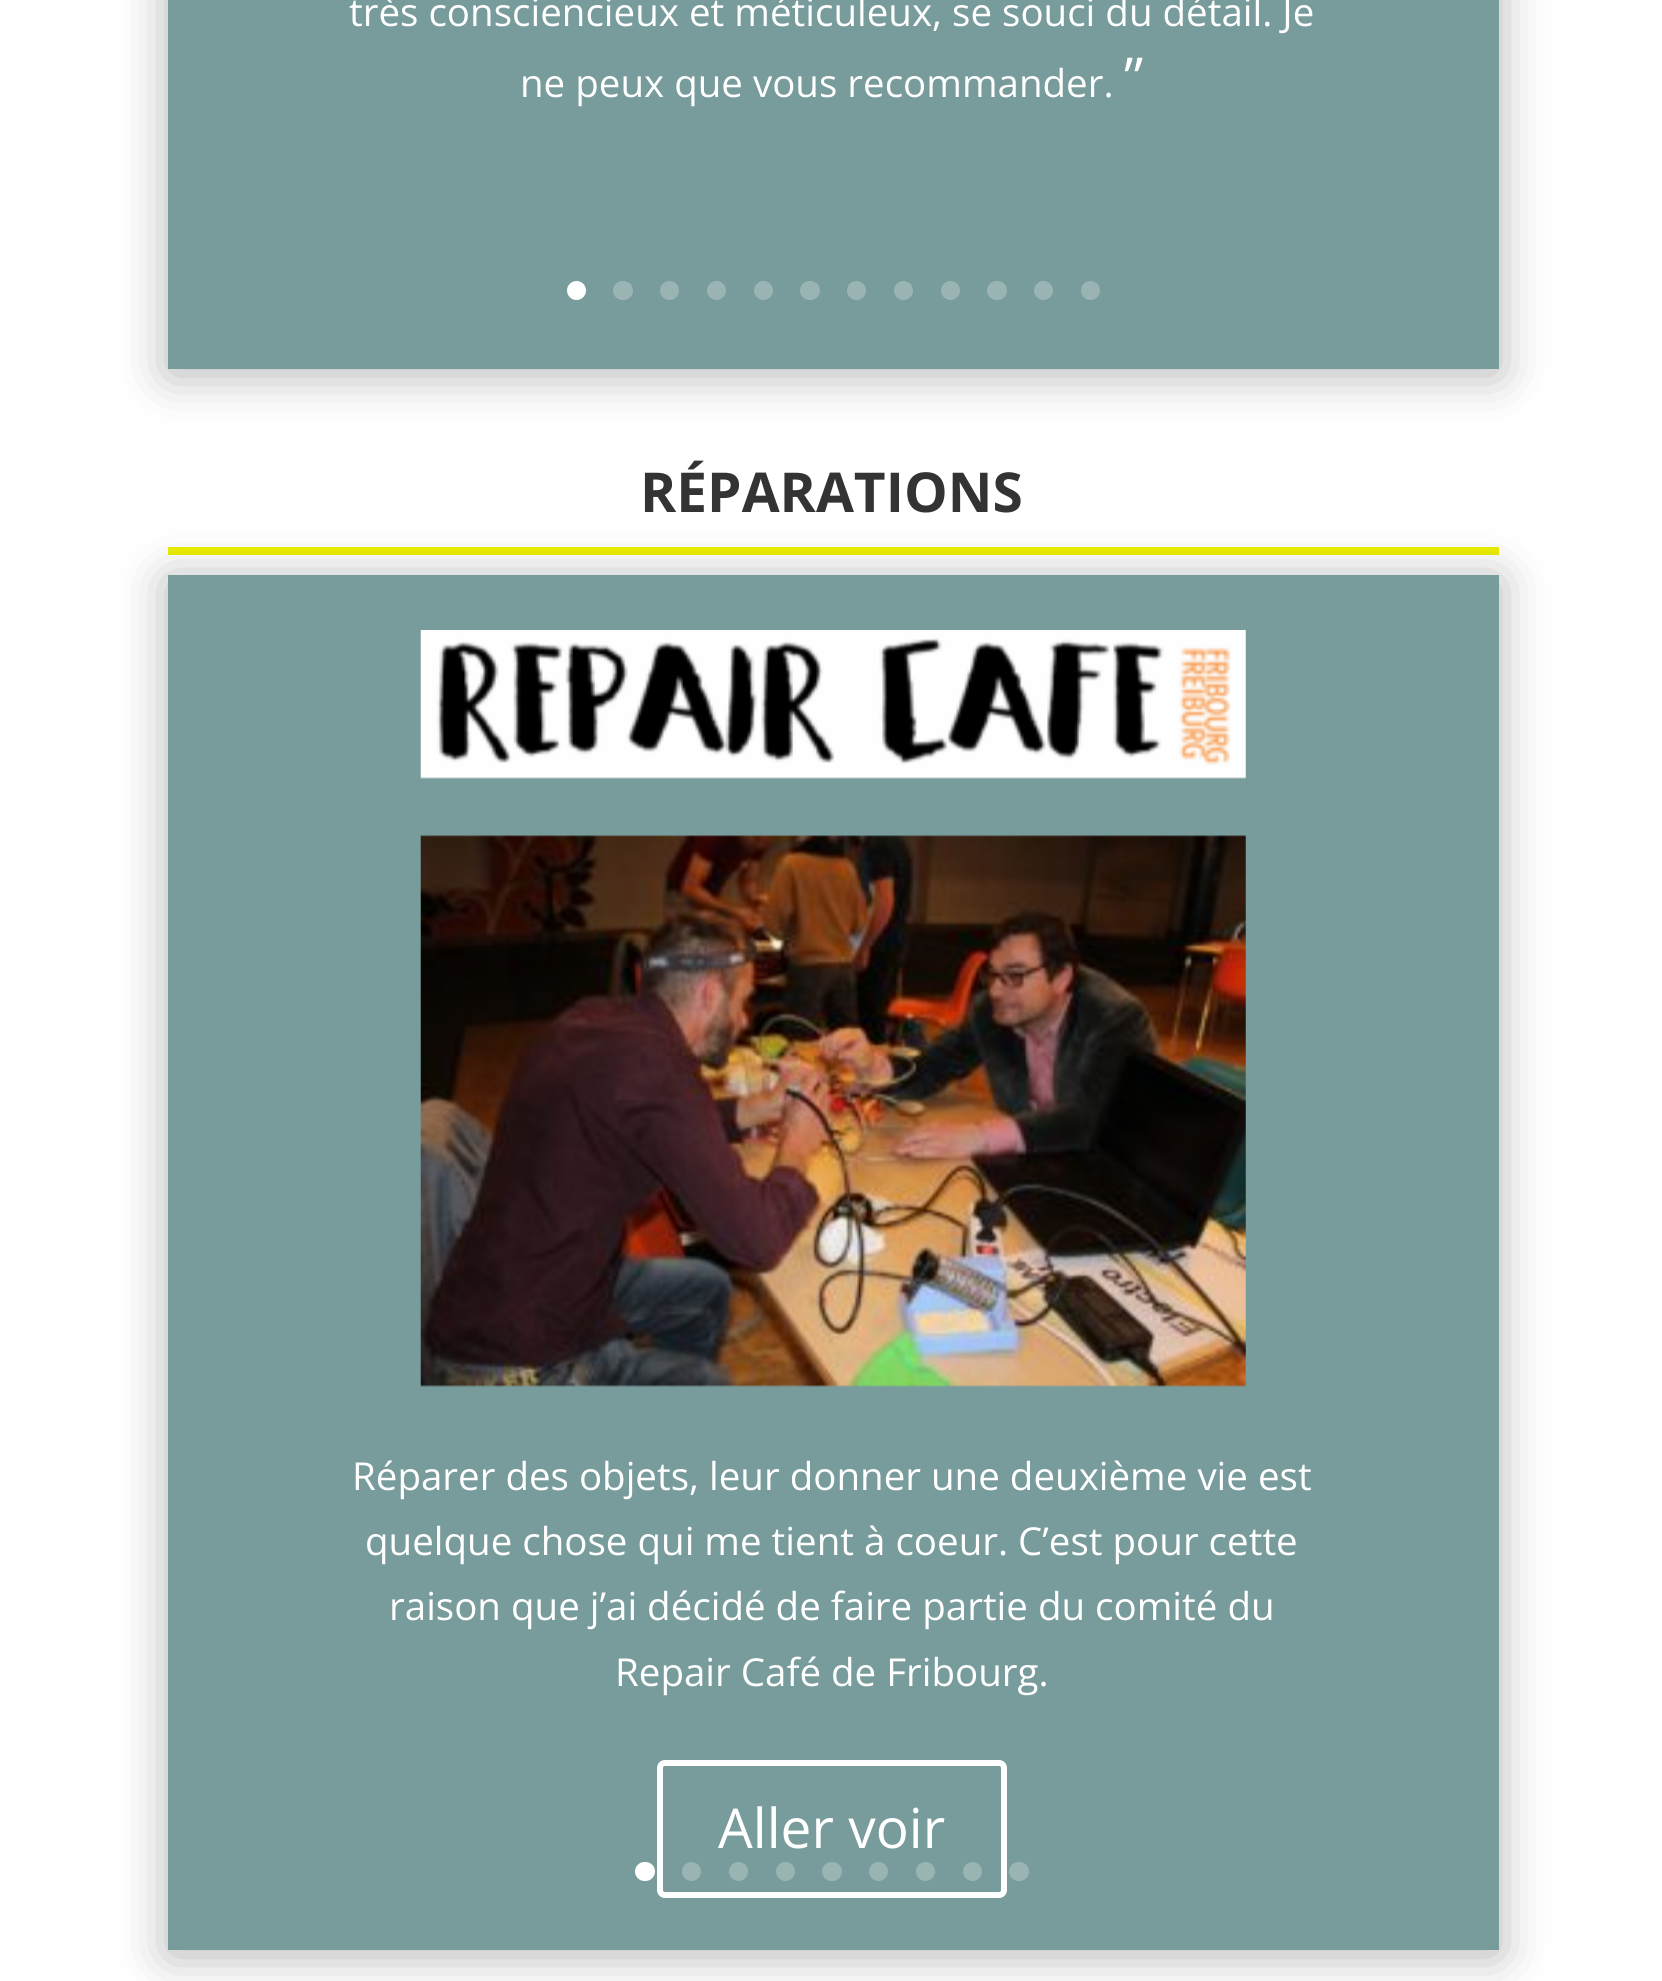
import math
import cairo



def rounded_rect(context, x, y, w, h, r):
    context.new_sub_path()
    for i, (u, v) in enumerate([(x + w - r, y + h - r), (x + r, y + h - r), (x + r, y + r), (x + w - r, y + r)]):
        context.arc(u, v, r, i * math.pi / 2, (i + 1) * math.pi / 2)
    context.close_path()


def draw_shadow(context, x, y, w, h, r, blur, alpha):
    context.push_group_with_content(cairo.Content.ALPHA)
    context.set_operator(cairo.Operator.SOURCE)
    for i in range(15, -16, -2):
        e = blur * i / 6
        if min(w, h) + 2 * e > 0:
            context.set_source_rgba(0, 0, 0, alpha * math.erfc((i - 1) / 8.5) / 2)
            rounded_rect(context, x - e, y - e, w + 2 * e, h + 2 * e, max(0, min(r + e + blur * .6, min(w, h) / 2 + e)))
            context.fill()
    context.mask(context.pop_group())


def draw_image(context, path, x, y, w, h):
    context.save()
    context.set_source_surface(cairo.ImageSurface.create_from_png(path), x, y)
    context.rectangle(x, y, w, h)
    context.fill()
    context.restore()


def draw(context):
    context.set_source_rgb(1, 1, 1)
    context.paint()
    context.save()
    context.set_fill_rule(cairo.FillRule.EVEN_ODD)
    context.new_path()
    context.move_to(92, 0)
    context.line_to(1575, 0)
    context.line_to(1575, 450)
    context.line_to(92, 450)
    context.close_path()
    context.move_to(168, -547)
    context.line_to(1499, -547)
    context.line_to(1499, 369)
    context.line_to(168, 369)
    context.close_path()
    context.clip()
    context.set_source_rgb(0, 0, 0)
    draw_shadow(context, 168, -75, 1331, 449, 0, 25, 0.3)
    context.restore()
    context.set_source_rgba(51 / 255, 103 / 255, 103 / 255, 0.66)
    context.rectangle(168, 0, 1331, 369)
    context.fill()
    context.set_source_rgb(1, 1, 1)
    context.arc(576.5, 290.5, 9.5, 0, 2 * math.pi)
    context.fill()
    context.set_source_rgb(154 / 255, 180 / 255, 180 / 255)
    rounded_rect(context, 613, 281, 20, 19, 9.5)
    context.fill()
    context.arc(669.5, 290.5, 9.5, 0, 2 * math.pi)
    context.fill()
    context.arc(716.5, 290.5, 9.5, 0, 2 * math.pi)
    context.fill()
    context.arc(763.5, 290.5, 9.5, 0, 2 * math.pi)
    context.fill()
    rounded_rect(context, 800, 281, 20, 19, 9.5)
    context.fill()
    context.arc(856.5, 290.5, 9.5, 0, 2 * math.pi)
    context.fill()
    context.arc(903.5, 290.5, 9.5, 0, 2 * math.pi)
    context.fill()
    context.arc(950.5, 290.5, 9.5, 0, 2 * math.pi)
    context.fill()
    rounded_rect(context, 987, 281, 20, 19, 9.5)
    context.fill()
    context.arc(1043.5, 290.5, 9.5, 0, 2 * math.pi)
    context.fill()
    context.arc(1090.5, 290.5, 9.5, 0, 2 * math.pi)
    context.fill()
    context.set_source_rgb(237 / 255, 240 / 255, 0)
    context.rectangle(168, 547, 1331, 8)
    context.fill()
    context.save()
    context.set_fill_rule(cairo.FillRule.EVEN_ODD)
    context.new_path()
    context.move_to(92, 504)
    context.line_to(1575, 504)
    context.line_to(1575, 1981)
    context.line_to(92, 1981)
    context.close_path()
    context.move_to(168, 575)
    context.line_to(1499, 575)
    context.line_to(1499, 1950)
    context.line_to(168, 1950)
    context.close_path()
    context.clip()
    context.set_source_rgb(0, 0, 0)
    draw_shadow(context, 168, 580, 1331, 1375, 0, 25, 0.3)
    context.restore()
    context.set_source_rgba(51 / 255, 103 / 255, 103 / 255, 0.66)
    context.rectangle(168, 575, 1331, 1375)
    context.fill()
    draw_image(context, "images/1.png", 420, 630, 826, 149)
    draw_image(context, "images/2.png", 420, 835, 826, 552)
    rounded_rect(context, 660, 1763, 344, 132, 5)
    context.set_source_rgb(1, 1, 1)
    context.set_line_width(6)
    context.stroke()
    rounded_rect(context, 635, 1862, 20, 19, 9.5)
    context.fill()
    context.set_source_rgb(154 / 255, 180 / 255, 180 / 255)
    context.arc(691.5, 1871.5, 9.5, 0, 2 * math.pi)
    context.fill()
    context.arc(738.5, 1871.5, 9.5, 0, 2 * math.pi)
    context.fill()
    context.arc(785.5, 1871.5, 9.5, 0, 2 * math.pi)
    context.fill()
    rounded_rect(context, 822, 1862, 20, 19, 9.5)
    context.fill()
    context.arc(878.5, 1871.5, 9.5, 0, 2 * math.pi)
    context.fill()
    context.arc(925.5, 1871.5, 9.5, 0, 2 * math.pi)
    context.fill()
    context.arc(972.5, 1871.5, 9.5, 0, 2 * math.pi)
    context.fill()
    rounded_rect(context, 1009, 1862, 20, 19, 9.5)
    context.fill()
    context.select_font_face("Open Sans")
    context.set_font_size(38.5)
    context.set_source_rgb(1, 1, 1)
    context.move_to(349, 26)
    context.show_text("très consciencieux et méticuleux, se souci du détail. Je")
    context.set_font_size(55)
    context.move_to(1124, 97)
    context.show_text("”")
    context.set_font_size(38.5)
    context.move_to(520, 97)
    context.show_text("ne peux que vous recommander.")
    context.select_font_face("Open Sans", cairo.FontSlant.NORMAL, cairo.FontWeight.BOLD)
    context.set_font_size(55)
    context.set_source_rgb(51 / 255, 51 / 255, 51 / 255)
    context.move_to(640, 512)
    context.show_text("RÉPARATIONS")
    context.select_font_face("Open Sans")
    context.set_font_size(38.5)
    context.set_source_rgb(1, 1, 1)
    context.move_to(352, 1490)
    context.show_text("Réparer des objets, leur donner une deuxième vie est")
    context.move_to(365, 1555)
    context.show_text("quelque chose qui me tient à coeur. C’est pour cette")
    context.move_to(389, 1620)
    context.show_text("raison que j’ai décidé de faire partie du comité du")
    context.move_to(615, 1686)
    context.show_text("Repair Café de Fribourg.")
    context.set_font_size(55)
    context.move_to(718, 1848)
    context.show_text("Aller voir")


surface = cairo.ImageSurface(cairo.Format.RGB24, 1662, 1981)
context = cairo.Context(surface)
options = cairo.FontOptions()
options.set_hint_metrics(cairo.HintMetrics.OFF)
options.set_hint_style(cairo.HintStyle.NONE)
context.set_font_options(options)
context.set_miter_limit(4)
draw(context)
surface.write_to_png("out.png")
